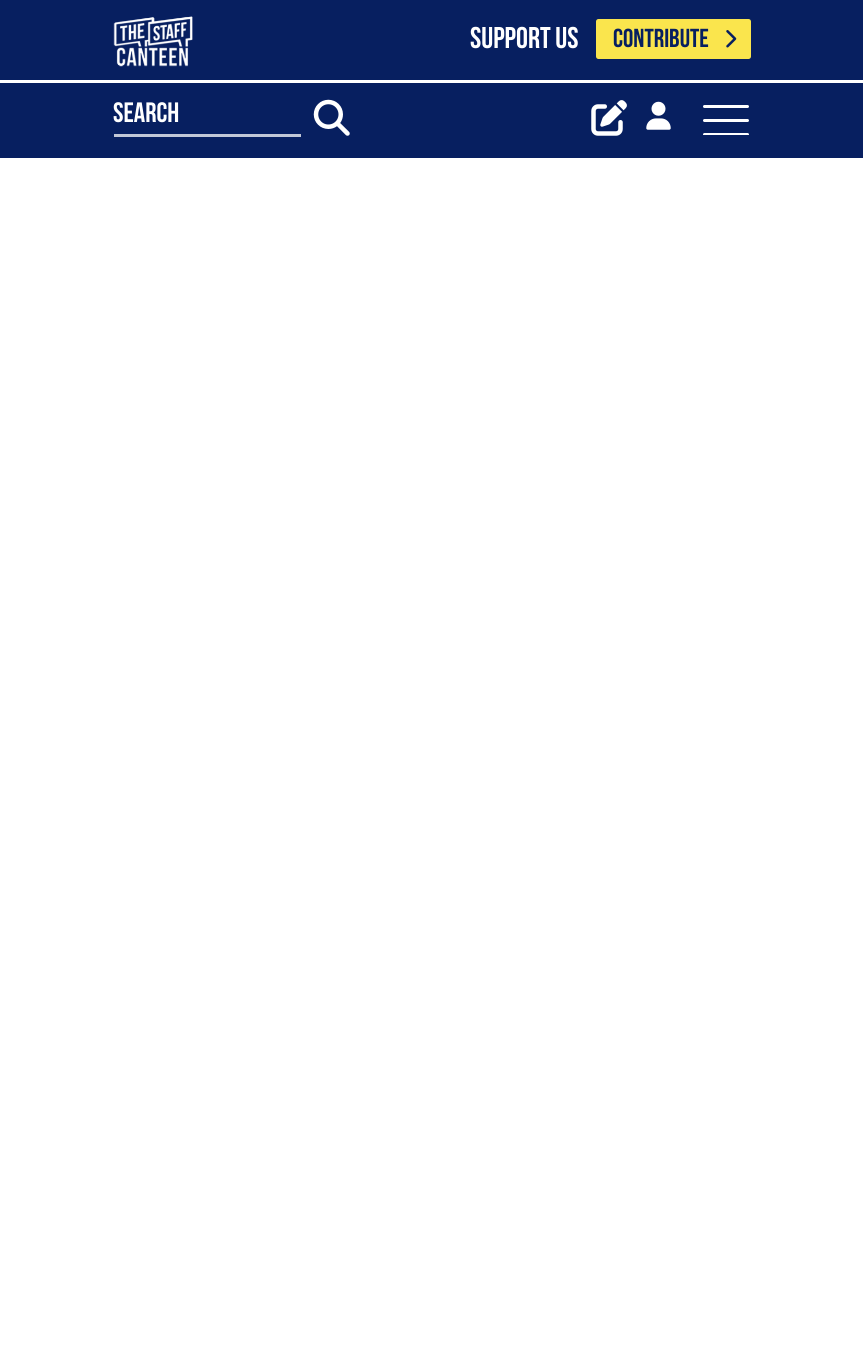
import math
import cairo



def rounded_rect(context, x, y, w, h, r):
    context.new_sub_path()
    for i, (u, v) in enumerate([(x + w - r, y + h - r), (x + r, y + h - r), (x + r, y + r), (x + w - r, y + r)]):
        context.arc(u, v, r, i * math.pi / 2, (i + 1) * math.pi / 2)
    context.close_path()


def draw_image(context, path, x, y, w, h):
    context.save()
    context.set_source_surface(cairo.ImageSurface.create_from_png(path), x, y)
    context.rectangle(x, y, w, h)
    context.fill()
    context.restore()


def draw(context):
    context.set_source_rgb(1, 1, 1)
    context.paint()
    context.set_source_rgb(7 / 255, 31 / 255, 96 / 255)
    context.rectangle(0, 0, 863, 158)
    context.fill()
    draw_image(context, "images/1.png", 113, 16, 80, 51)
    context.set_source_rgb(250 / 255, 229 / 255, 77 / 255)
    rounded_rect(context, 596, 19, 155, 40, 2.5)
    context.fill()
    draw_image(context, "images/2.png", 726, 30, 11, 18)
    context.set_source_rgb(1, 1, 1)
    context.rectangle(0, 80, 863, 3)
    context.fill()
    context.set_source_rgb(193 / 255, 199 / 255, 215 / 255)
    context.rectangle(114, 134, 187, 3)
    context.fill()
    draw_image(context, "images/3.png", 313, 99, 37, 37)
    draw_image(context, "images/4.png", 591, 100, 36, 36)
    draw_image(context, "images/5.png", 646, 101, 25, 29)
    context.set_source_rgb(1, 1, 1)
    rounded_rect(context, 703, 105, 46, 3, 1.5)
    context.fill()
    rounded_rect(context, 703, 119, 46, 3, 1.5)
    context.fill()
    context.save()
    context.rectangle(703, 105, 46, 30)
    context.clip()
    rounded_rect(context, 703, 133, 46, 3, 1.5)
    context.fill()
    context.restore()
    context.select_font_face("Bebas Neue", cairo.FontSlant.NORMAL, cairo.FontWeight.BOLD)
    context.set_font_size(30)
    context.move_to(470, 48)
    context.show_text("SUPPORT US")
    context.set_font_size(26)
    context.set_source_rgb(7 / 255, 31 / 255, 96 / 255)
    context.move_to(613, 47)
    context.show_text("CONTRIBUTE")
    context.set_font_size(28)
    context.set_source_rgb(1, 1, 1)
    context.move_to(113, 122)
    context.show_text("search")


surface = cairo.ImageSurface(cairo.Format.RGB24, 863, 1367)
context = cairo.Context(surface)
options = cairo.FontOptions()
options.set_hint_metrics(cairo.HintMetrics.OFF)
options.set_hint_style(cairo.HintStyle.NONE)
context.set_font_options(options)
context.set_miter_limit(4)
draw(context)
surface.write_to_png("out.png")
